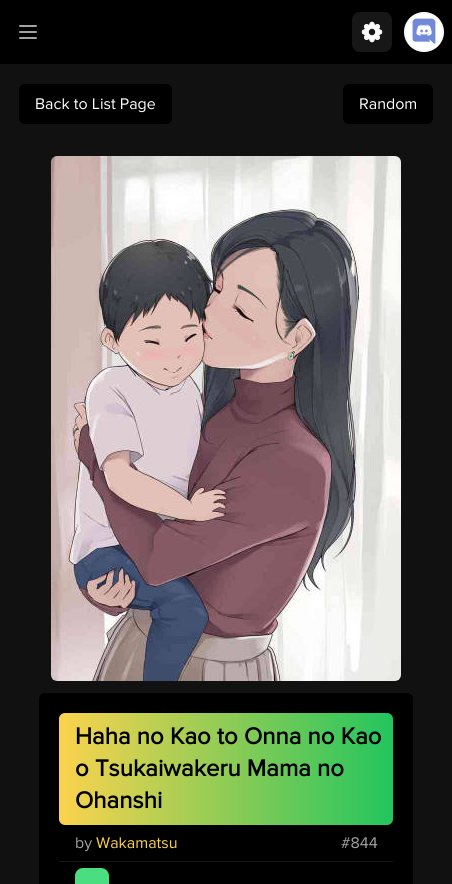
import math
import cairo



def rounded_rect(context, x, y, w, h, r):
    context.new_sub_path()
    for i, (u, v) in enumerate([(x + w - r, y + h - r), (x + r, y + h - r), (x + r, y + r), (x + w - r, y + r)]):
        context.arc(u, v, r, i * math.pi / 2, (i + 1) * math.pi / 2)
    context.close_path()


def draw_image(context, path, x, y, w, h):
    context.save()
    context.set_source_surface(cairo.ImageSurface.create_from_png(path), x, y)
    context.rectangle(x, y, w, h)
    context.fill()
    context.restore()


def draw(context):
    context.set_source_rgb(17 / 255, 17 / 255, 17 / 255)
    context.paint()
    context.set_source_rgb(0, 0, 0)
    context.rectangle(0, 0, 452, 64)
    context.fill()
    context.new_path()
    context.move_to(20, 26)
    context.line_to(36, 26)
    context.move_to(20, 32)
    context.line_to(36, 32)
    context.move_to(20, 38)
    context.line_to(36, 38)
    context.set_source_rgb(163 / 255, 163 / 255, 163 / 255)
    context.set_line_cap(cairo.LineCap.ROUND)
    context.set_line_join(cairo.LineJoin.ROUND)
    context.stroke()
    context.set_source_rgb(23 / 255, 23 / 255, 23 / 255)
    rounded_rect(context, 352, 12, 40, 40, 8)
    context.fill()
    draw_image(context, "images/1.png", 361, 21, 22, 22)
    context.set_source_rgb(1, 1, 1)
    context.arc(424, 32, 20, 0, 2 * math.pi)
    context.fill()
    draw_image(context, "images/2.png", 412, 18, 24, 26)
    context.set_source_rgb(0, 0, 0)
    rounded_rect(context, 19, 84, 153, 40, 6)
    context.fill()
    rounded_rect(context, 343, 84, 90, 40, 6)
    context.fill()
    draw_image(context, "images/3.png", 51, 156, 350, 525)
    rounded_rect(context, 39, 693, 374, 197, 6)
    context.fill()
    gradient = cairo.LinearGradient(59, 769, 393, 769)
    gradient.add_color_stop_rgba(0, 252 / 255, 211 / 255, 77 / 255, 1)
    gradient.add_color_stop_rgba(1, 34 / 255, 197 / 255, 94 / 255, 1)
    context.set_source(gradient)
    rounded_rect(context, 59, 713, 334, 112, 6)
    context.fill()
    context.set_source_rgb(23 / 255, 23 / 255, 23 / 255)
    context.rectangle(59, 861, 334, 1)
    context.fill()
    context.set_source_rgb(74 / 255, 222 / 255, 128 / 255)
    rounded_rect(context, 75, 868, 34, 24, 8)
    context.fill()
    context.select_font_face("Proxima Nova")
    context.set_font_size(16)
    context.set_source_rgb(1, 1, 1)
    context.move_to(35, 109)
    context.show_text("Back to List Page")
    context.move_to(359, 109)
    context.show_text("Random")
    context.select_font_face("Proxima Nova", cairo.FontSlant.NORMAL, cairo.FontWeight.BOLD)
    context.set_font_size(24)
    context.set_source_rgb(0, 0, 0)
    context.move_to(75, 744)
    context.show_text("Haha no Kao to Onna no Kao")
    context.move_to(75, 776)
    context.show_text("o Tsukaiwakeru Mama no")
    context.move_to(75, 808)
    context.show_text("Ohanshi")
    context.select_font_face("Proxima Nova")
    context.set_font_size(16)
    context.set_source_rgb(163 / 255, 163 / 255, 163 / 255)
    context.move_to(75, 848)
    context.show_text("by")
    context.set_source_rgb(252 / 255, 211 / 255, 77 / 255)
    context.move_to(96, 848)
    context.show_text("Wakamatsu")
    context.set_source_rgb(163 / 255, 163 / 255, 163 / 255)
    context.move_to(341, 848)
    context.show_text("#844")


surface = cairo.ImageSurface(cairo.Format.RGB24, 452, 884)
context = cairo.Context(surface)
options = cairo.FontOptions()
options.set_hint_metrics(cairo.HintMetrics.OFF)
options.set_hint_style(cairo.HintStyle.NONE)
context.set_font_options(options)
context.set_miter_limit(4)
draw(context)
surface.write_to_png("out.png")
